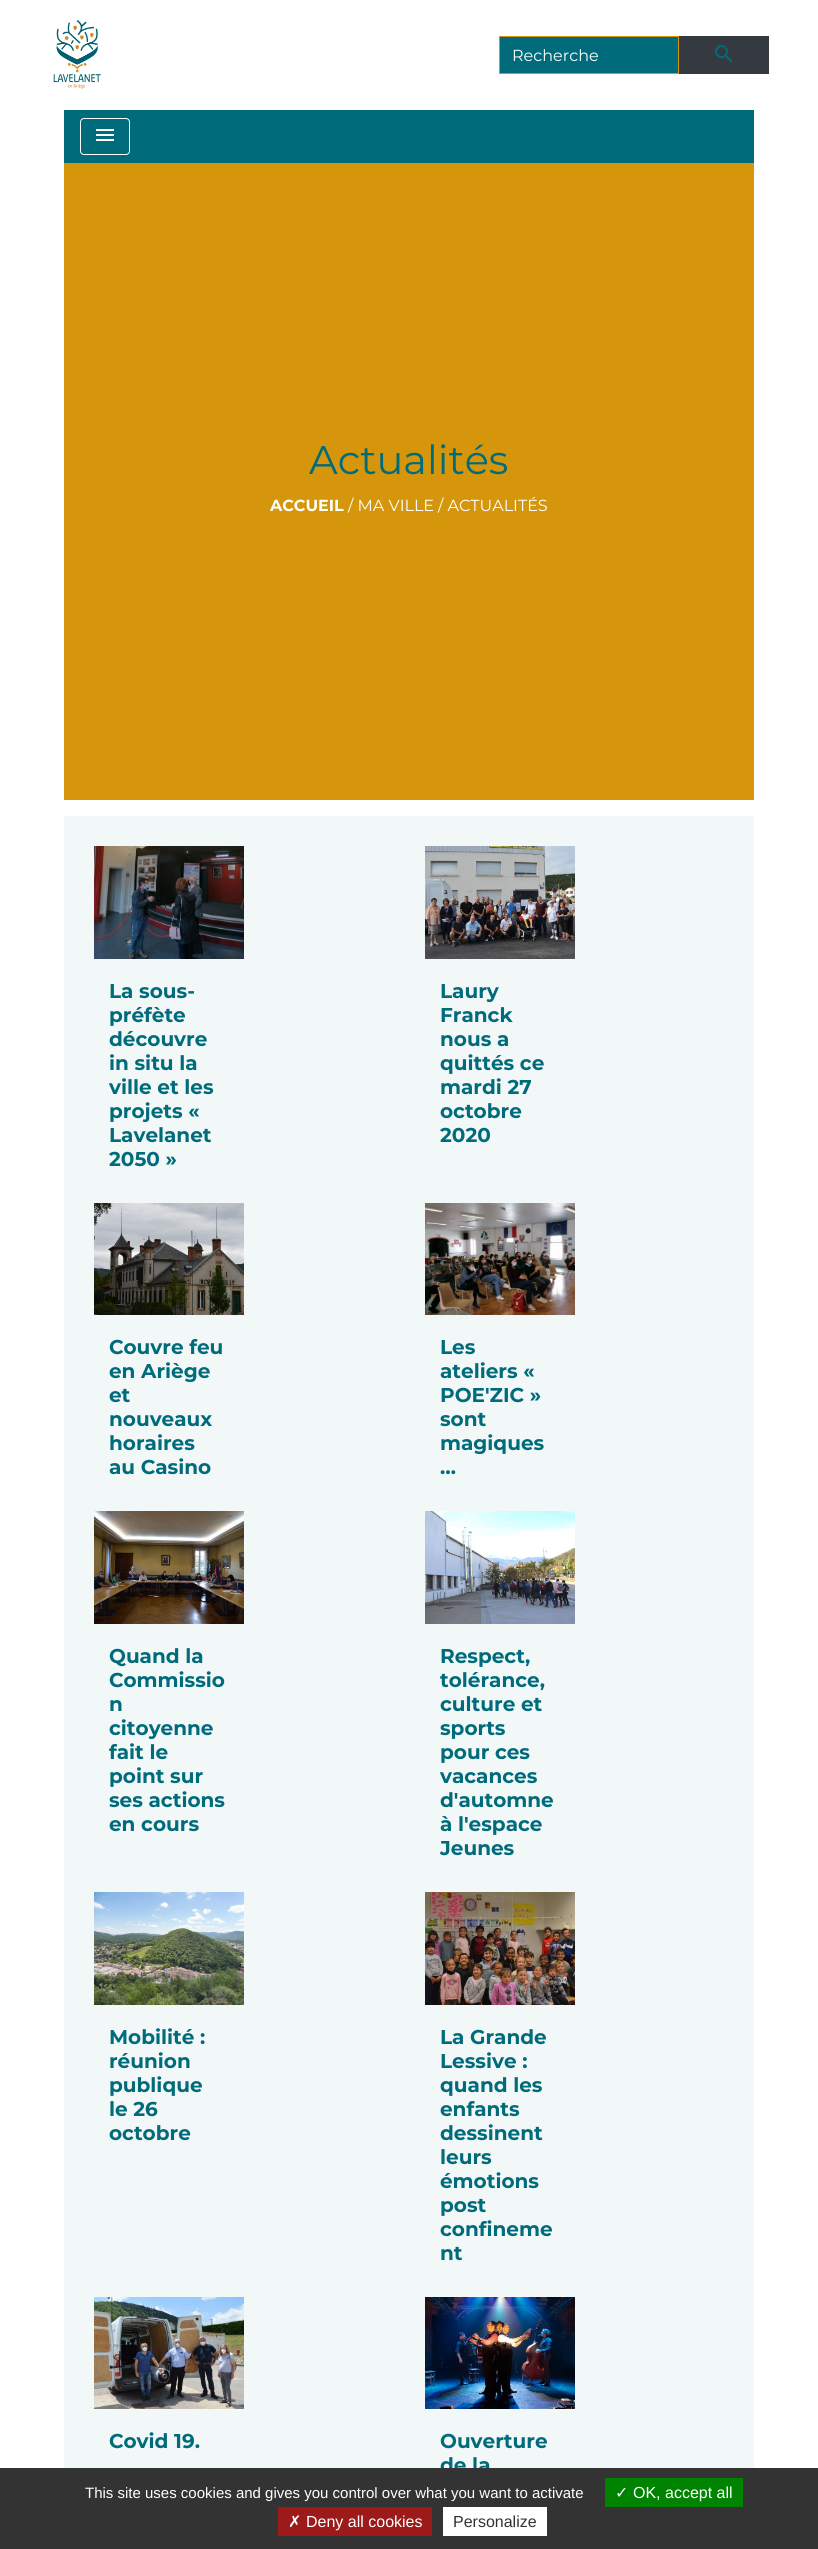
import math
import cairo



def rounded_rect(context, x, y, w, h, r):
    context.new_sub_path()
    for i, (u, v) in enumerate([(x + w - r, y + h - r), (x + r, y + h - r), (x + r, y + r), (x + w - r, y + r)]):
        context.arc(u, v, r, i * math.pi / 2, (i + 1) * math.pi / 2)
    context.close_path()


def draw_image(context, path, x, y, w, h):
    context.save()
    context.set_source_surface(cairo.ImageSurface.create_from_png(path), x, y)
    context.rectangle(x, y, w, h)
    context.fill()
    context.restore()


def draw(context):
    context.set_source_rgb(1, 1, 1)
    context.paint()
    draw_image(context, "images/1.png", 53, 20, 48, 69)
    context.set_source_rgb(0, 107 / 255, 123 / 255)
    context.rectangle(499.5, 36.5, 179, 37)
    context.fill_preserve()
    context.set_source_rgb(213 / 255, 150 / 255, 11 / 255)
    context.set_line_width(1)
    context.stroke()
    context.set_source_rgb(52 / 255, 58 / 255, 64 / 255)
    context.rectangle(679, 36, 90, 38)
    context.fill()
    draw_image(context, "images/2.png", 715, 45, 18, 18)
    context.set_source_rgb(0, 107 / 255, 123 / 255)
    context.rectangle(64, 110, 690, 53)
    context.fill()
    rounded_rect(context, 80.5, 118.5, 49, 36, 3.5)
    context.set_source_rgb(1, 1, 1)
    context.stroke()
    draw_image(context, "images/3.png", 96, 129, 18, 12)
    context.set_source_rgb(213 / 255, 150 / 255, 11 / 255)
    context.rectangle(64, 163, 690, 637)
    context.fill()
    context.set_source_rgb(242 / 255, 248 / 255, 248 / 255)
    context.rectangle(64, 816, 690, 1652)
    context.fill()
    draw_image(context, "images/4.png", 94, 846, 150, 113)
    draw_image(context, "images/5.png", 425, 846, 150, 113)
    draw_image(context, "images/6.png", 94, 1203, 150, 112)
    draw_image(context, "images/7.png", 425, 1203, 150, 112)
    draw_image(context, "images/8.png", 94, 1511, 150, 113)
    draw_image(context, "images/9.png", 425, 1511, 150, 113)
    draw_image(context, "images/10.png", 94, 1892, 150, 113)
    draw_image(context, "images/11.png", 425, 1892, 150, 113)
    draw_image(context, "images/12.png", 94, 2297, 150, 112)
    draw_image(context, "images/13.png", 425, 2297, 150, 112)
    context.select_font_face("Montserrat")
    context.set_font_size(16)
    context.set_source_rgb(1, 1, 1)
    context.move_to(512, 61)
    context.show_text("Recherche")
    context.set_font_size(40)
    context.set_source_rgb(0, 107 / 255, 123 / 255)
    context.move_to(309, 474)
    context.show_text("Actualités")
    context.select_font_face("Montserrat", cairo.FontSlant.NORMAL, cairo.FontWeight.BOLD)
    context.set_font_size(16)
    context.set_source_rgb(1, 1, 1)
    context.move_to(270, 511)
    context.show_text("ACCUEIL")
    context.select_font_face("Montserrat")
    context.move_to(348, 511)
    context.show_text("/ MA VILLE")
    context.move_to(438, 511)
    context.show_text("/ ACTUALITÉS")
    context.select_font_face("Montserrat", cairo.FontSlant.NORMAL, cairo.FontWeight.BOLD)
    context.set_font_size(20)
    context.set_source_rgb(0, 107 / 255, 123 / 255)
    context.move_to(109, 998)
    context.show_text("La sous-")
    context.move_to(109, 1022)
    context.show_text("préfète")
    context.move_to(109, 1046)
    context.show_text("découvre")
    context.move_to(109, 1070)
    context.show_text("in situ la")
    context.move_to(109, 1094)
    context.show_text("ville et les")
    context.move_to(109, 1118)
    context.show_text("projets «")
    context.move_to(109, 1142)
    context.show_text("Lavelanet")
    context.move_to(109, 1166)
    context.show_text("2050 »")
    context.move_to(440, 998)
    context.show_text("Laury")
    context.move_to(440, 1022)
    context.show_text("Franck")
    context.move_to(440, 1046)
    context.show_text("nous a")
    context.move_to(440, 1070)
    context.show_text("quittés ce")
    context.move_to(440, 1094)
    context.show_text("mardi 27")
    context.move_to(440, 1118)
    context.show_text("octobre")
    context.move_to(440, 1142)
    context.show_text("2020")
    context.move_to(109, 1354)
    context.show_text("Couvre feu")
    context.move_to(109, 1378)
    context.show_text("en Ariège")
    context.move_to(109, 1402)
    context.show_text("et")
    context.move_to(109, 1426)
    context.show_text("nouveaux")
    context.move_to(109, 1450)
    context.show_text("horaires")
    context.move_to(109, 1474)
    context.show_text("au Casino")
    context.move_to(440, 1354)
    context.show_text("Les")
    context.move_to(440, 1378)
    context.show_text("ateliers «")
    context.move_to(440, 1402)
    context.show_text("POE'ZIC »")
    context.move_to(440, 1426)
    context.show_text("sont")
    context.move_to(440, 1450)
    context.show_text("magiques")
    context.move_to(440, 1474)
    context.show_text("…")
    context.move_to(109, 1663)
    context.show_text("Quand la")
    context.move_to(109, 1687)
    context.show_text("Commissio")
    context.move_to(109, 1711)
    context.show_text("n")
    context.move_to(109, 1735)
    context.show_text("citoyenne")
    context.move_to(109, 1759)
    context.show_text("fait le")
    context.move_to(109, 1783)
    context.show_text("point sur")
    context.move_to(109, 1807)
    context.show_text("ses actions")
    context.move_to(109, 1831)
    context.show_text("en cours")
    context.move_to(440, 1663)
    context.show_text("Respect,")
    context.move_to(440, 1687)
    context.show_text("tolérance,")
    context.move_to(440, 1711)
    context.show_text("culture et")
    context.move_to(440, 1735)
    context.show_text("sports")
    context.move_to(440, 1759)
    context.show_text("pour ces")
    context.move_to(440, 1783)
    context.show_text("vacances")
    context.move_to(440, 1807)
    context.show_text("d'automne")
    context.move_to(440, 1831)
    context.show_text("à l'espace")
    context.move_to(440, 1855)
    context.show_text("Jeunes")
    context.move_to(109, 2044)
    context.show_text("Mobilité :")
    context.move_to(109, 2068)
    context.show_text("réunion")
    context.move_to(109, 2092)
    context.show_text("publique")
    context.move_to(109, 2116)
    context.show_text("le 26")
    context.move_to(109, 2140)
    context.show_text("octobre")
    context.move_to(440, 2044)
    context.show_text("La Grande")
    context.move_to(440, 2068)
    context.show_text("Lessive :")
    context.move_to(440, 2092)
    context.show_text("quand les")
    context.move_to(440, 2116)
    context.show_text("enfants")
    context.move_to(440, 2140)
    context.show_text("dessinent")
    context.move_to(440, 2164)
    context.show_text("leurs")
    context.move_to(440, 2188)
    context.show_text("émotions")
    context.move_to(440, 2212)
    context.show_text("post")
    context.move_to(440, 2236)
    context.show_text("confineme")
    context.move_to(440, 2260)
    context.show_text("nt")
    context.move_to(109, 2448)
    context.show_text("Covid 19.")
    context.move_to(440, 2448)
    context.show_text("Ouverture")
    context.move_to(440, 2472)
    context.show_text("de la")
    context.set_source_rgb(51 / 255, 51 / 255, 51 / 255)
    context.rectangle(0, 2468, 818, 81)
    context.fill()
    context.select_font_face("Liberation Sans")
    context.set_font_size(15)
    context.set_source_rgb(1, 1, 1)
    context.move_to(85, 2498)
    context.show_text("This site uses cookies and gives you control over what you want to activate")
    context.set_source_rgb(0, 131 / 255, 0)
    context.rectangle(605, 2478, 138, 29)
    context.fill()
    context.select_font_face("DejaVu Sans")
    context.set_font_size(16)
    context.set_source_rgb(1, 1, 1)
    context.move_to(615, 2498)
    context.show_text("✓")
    context.select_font_face("Liberation Sans")
    context.move_to(633, 2498)
    context.show_text("OK, accept all")
    context.set_source_rgb(156 / 255, 26 / 255, 26 / 255)
    context.rectangle(278, 2507, 154, 29)
    context.fill()
    context.select_font_face("DejaVu Sans")
    context.set_source_rgb(1, 1, 1)
    context.move_to(288, 2527)
    context.show_text("✗")
    context.select_font_face("Liberation Sans")
    context.move_to(306, 2527)
    context.show_text("Deny all cookies")
    context.rectangle(443, 2507, 104, 29)
    context.fill()
    context.set_source_rgb(51 / 255, 51 / 255, 51 / 255)
    context.move_to(453, 2527)
    context.show_text("Personalize")


surface = cairo.ImageSurface(cairo.Format.RGB24, 818, 2549)
context = cairo.Context(surface)
options = cairo.FontOptions()
options.set_hint_metrics(cairo.HintMetrics.OFF)
options.set_hint_style(cairo.HintStyle.NONE)
context.set_font_options(options)
context.set_miter_limit(4)
draw(context)
surface.write_to_png("out.png")
